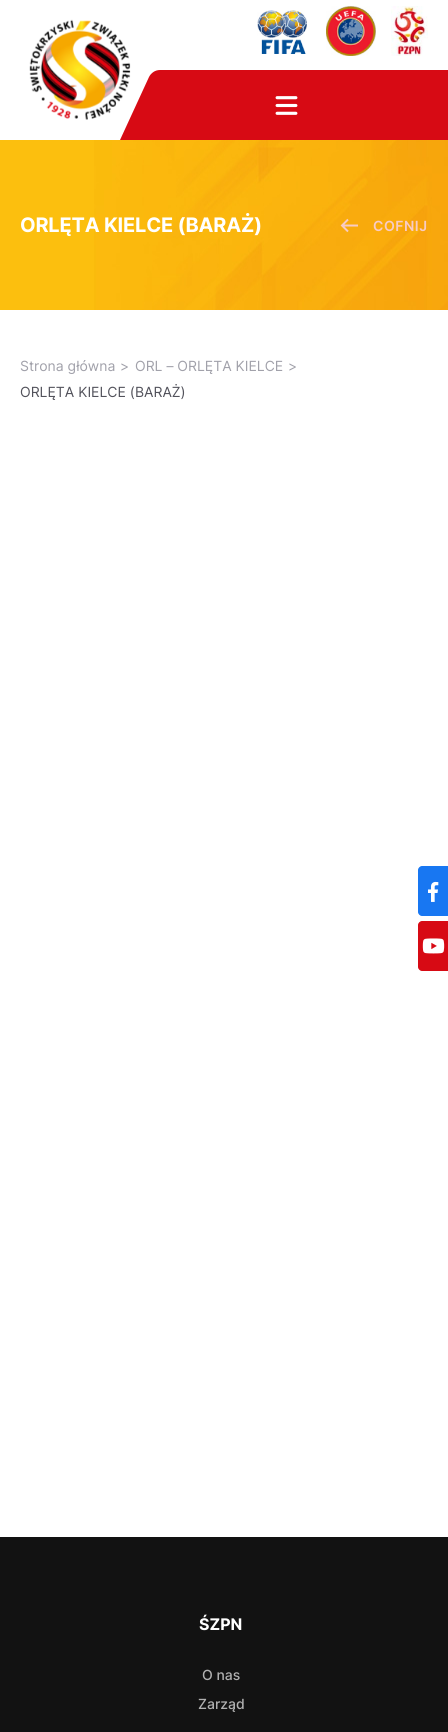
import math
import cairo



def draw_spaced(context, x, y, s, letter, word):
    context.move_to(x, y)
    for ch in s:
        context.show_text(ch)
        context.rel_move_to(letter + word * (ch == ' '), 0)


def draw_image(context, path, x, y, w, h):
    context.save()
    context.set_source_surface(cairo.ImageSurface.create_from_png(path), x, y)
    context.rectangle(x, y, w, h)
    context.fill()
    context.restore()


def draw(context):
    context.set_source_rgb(1, 1, 1)
    context.paint()
    draw_image(context, "images/1.png", 29, 19, 102, 101)
    draw_image(context, "images/2.png", 257, 10, 50, 44)
    draw_image(context, "images/3.png", 326, 6, 50, 50)
    draw_image(context, "images/4.png", 391, 6, 37, 50)
    context.set_source_rgb(215 / 255, 10 / 255, 20 / 255)
    context.new_path()
    context.move_to(149, 77)
    context.curve_to(151, 73, 155, 70, 160, 70)
    context.line_to(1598, 70)
    context.line_to(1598, 140)
    context.line_to(120, 140)
    context.close_path()
    context.fill()
    draw_image(context, "images/5.png", 275, 96, 23, 19)
    context.set_source_rgb(252 / 255, 191 / 255, 14 / 255)
    context.rectangle(0, 140, 94, 170)
    context.fill()
    draw_image(context, "images/6.png", 94, 140, 354, 170)
    context.new_path()
    context.move_to(348, 231.5)
    context.line_to(342, 225.5)
    context.line_to(348, 219.5)
    context.move_to(342, 225.5)
    context.line_to(358, 225.5)
    context.set_source_rgb(248 / 255, 203 / 255, 197 / 255)
    context.stroke()
    context.set_source_rgb(24 / 255, 119 / 255, 242 / 255)
    context.new_path()
    context.move_to(422, 866)
    context.line_to(448, 866)
    context.line_to(448, 916)
    context.line_to(422, 916)
    context.curve_to(420, 916, 418, 914, 418, 912)
    context.line_to(418, 870)
    context.curve_to(418, 868, 420, 866, 422, 866)
    context.close_path()
    context.fill()
    draw_image(context, "images/7.png", 428, 881, 11, 21)
    context.set_source_rgb(215 / 255, 10 / 255, 20 / 255)
    context.new_path()
    context.move_to(422, 921)
    context.line_to(448, 921)
    context.line_to(448, 971)
    context.line_to(422, 971)
    context.curve_to(420, 971, 418, 969, 418, 967)
    context.line_to(418, 925)
    context.curve_to(418, 923, 420, 921, 422, 921)
    context.close_path()
    context.fill()
    draw_image(context, "images/8.png", 422, 938, 23, 16)
    context.set_source_rgb(18 / 255, 18 / 255, 18 / 255)
    context.rectangle(0, 1537, 448, 195)
    context.fill()
    context.select_font_face("Inter", cairo.FontSlant.NORMAL, cairo.FontWeight.BOLD)
    context.set_font_size(20)
    context.set_source_rgb(1, 1, 1)
    draw_spaced(context, 20, 232, "ORLĘTA KIELCE (BARAŻ)", -0.2, 0)
    context.select_font_face("Inter SemiBold")
    context.set_font_size(14)
    context.set_source_rgb(248 / 255, 203 / 255, 197 / 255)
    draw_spaced(context, 373, 231, "COFNIJ", 0.5, 0)
    context.select_font_face("Inter")
    context.set_source_rgb(161 / 255, 161 / 255, 170 / 255)
    context.move_to(20, 371)
    context.show_text("Strona główna")
    context.move_to(120, 371)
    context.show_text(">")
    context.move_to(135, 371)
    context.show_text("ORL – ORLĘTA KIELCE")
    context.move_to(288, 371)
    context.show_text(">")
    context.set_source_rgb(82 / 255, 82 / 255, 91 / 255)
    context.move_to(20, 397)
    context.show_text("ORLĘTA KIELCE (BARAŻ)")
    context.select_font_face("Inter", cairo.FontSlant.NORMAL, cairo.FontWeight.BOLD)
    context.set_font_size(16)
    context.set_source_rgb(1, 1, 1)
    context.move_to(199, 1630)
    context.show_text("ŚZPN")
    context.select_font_face("Inter Medium")
    context.set_font_size(14)
    context.set_source_rgb(176 / 255, 176 / 255, 176 / 255)
    context.move_to(202, 1680)
    context.show_text("O nas")
    context.move_to(198, 1709)
    context.show_text("Zarząd")


surface = cairo.ImageSurface(cairo.Format.RGB24, 448, 1732)
context = cairo.Context(surface)
options = cairo.FontOptions()
options.set_hint_metrics(cairo.HintMetrics.OFF)
options.set_hint_style(cairo.HintStyle.NONE)
context.set_font_options(options)
context.set_miter_limit(4)
draw(context)
surface.write_to_png("out.png")
